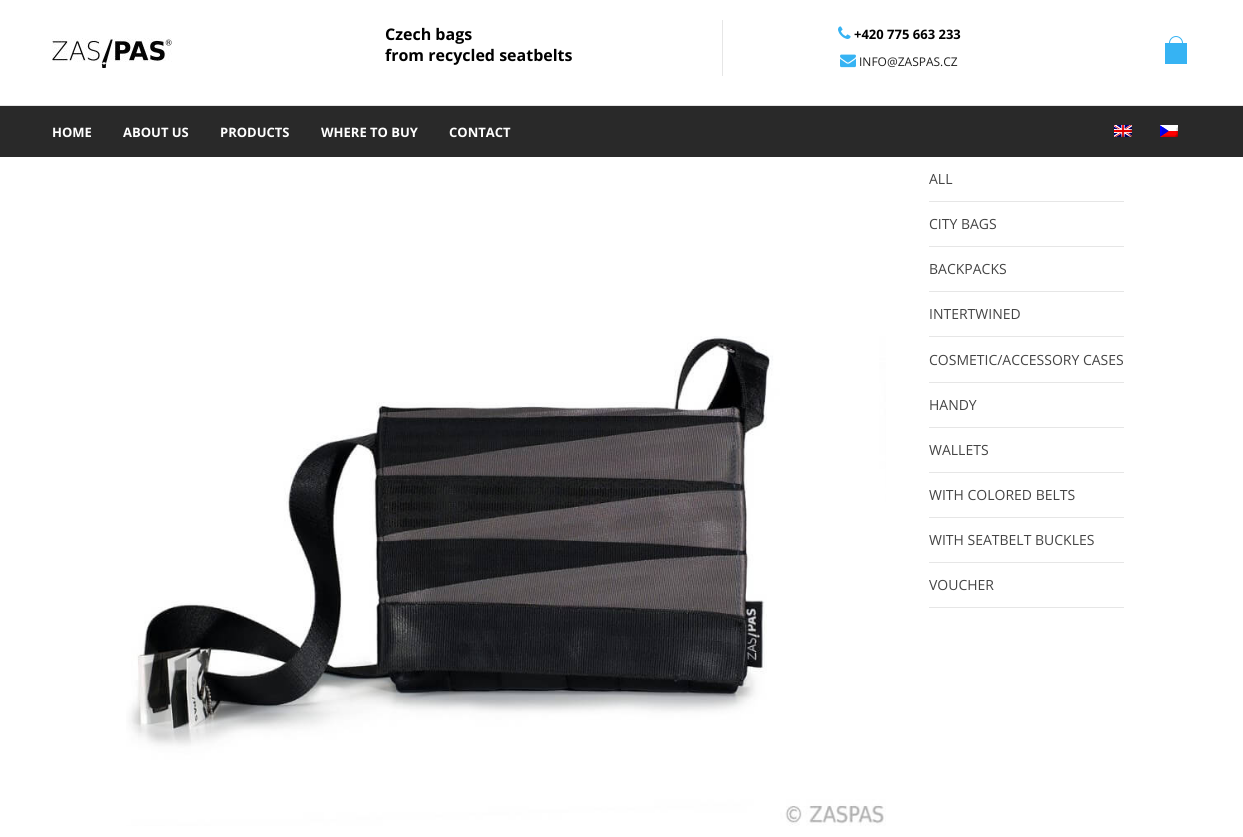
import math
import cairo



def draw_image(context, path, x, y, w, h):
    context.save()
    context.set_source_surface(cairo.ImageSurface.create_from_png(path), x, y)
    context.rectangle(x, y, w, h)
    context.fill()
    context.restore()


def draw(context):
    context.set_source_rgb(1, 1, 1)
    context.paint()
    draw_image(context, "images/1.png", 52, 38, 120, 30)
    context.set_source_rgb(230 / 255, 230 / 255, 230 / 255)
    context.rectangle(722, 20, 1, 56)
    context.fill()
    draw_image(context, "images/2.png", 838, 26, 13, 13)
    draw_image(context, "images/3.png", 840, 54, 16, 14)
    context.set_source_rgb(54 / 255, 179 / 255, 243 / 255)
    context.rectangle(1165, 43, 22, 21)
    context.fill()
    context.new_path()
    context.move_to(1176, 36.5)
    context.curve_to(1179.5, 36.5, 1182.5, 39.5, 1182.5, 43)
    context.line_to(1182.5, 43.5)
    context.line_to(1169.5, 43.5)
    context.line_to(1169.5, 43)
    context.curve_to(1169.5, 39.5, 1172.5, 36.5, 1176, 36.5)
    context.close_path()
    context.set_line_width(1)
    context.stroke()
    context.set_source_rgb(41 / 255, 41 / 255, 41 / 255)
    context.rectangle(0, 106, 1243, 51)
    context.fill()
    context.set_source_rgb(230 / 255, 230 / 255, 230 / 255)
    context.rectangle(0, 105, 1243, 1)
    context.fill()
    draw_image(context, "images/4.png", 1114, 125, 18, 12)
    draw_image(context, "images/5.png", 1160, 125, 18, 12)
    draw_image(context, "images/6.png", 126, 336, 760, 490)
    context.rectangle(929, 201, 195, 1)
    context.fill()
    context.rectangle(929, 246, 195, 1)
    context.fill()
    context.rectangle(929, 291, 195, 1)
    context.fill()
    context.rectangle(929, 336, 195, 1)
    context.fill()
    context.rectangle(929, 382, 195, 1)
    context.fill()
    context.rectangle(929, 427, 195, 1)
    context.fill()
    context.rectangle(929, 472, 195, 1)
    context.fill()
    context.rectangle(929, 517, 195, 1)
    context.fill()
    context.rectangle(929, 562, 195, 1)
    context.fill()
    context.rectangle(929, 607, 195, 1)
    context.fill()
    context.select_font_face("Open Sans", cairo.FontSlant.NORMAL, cairo.FontWeight.BOLD)
    context.set_font_size(16)
    context.set_source_rgb(0, 0, 0)
    context.move_to(385, 40)
    context.show_text("Czech bags")
    context.move_to(385, 61)
    context.show_text("from recycled seatbelts")
    context.set_font_size(13)
    context.move_to(854, 39)
    context.show_text("+420 775 663 233")
    context.select_font_face("Open Sans")
    context.set_font_size(12)
    context.set_source_rgb(30 / 255, 30 / 255, 30 / 255)
    context.move_to(859, 66)
    context.show_text("INFO@ZASPAS.CZ")
    context.select_font_face("Open Sans", cairo.FontSlant.NORMAL, cairo.FontWeight.BOLD)
    context.set_font_size(13)
    context.set_source_rgb(1, 1, 1)
    context.move_to(52, 137)
    context.show_text("HOME")
    context.move_to(123, 137)
    context.show_text("ABOUT US")
    context.move_to(220, 137)
    context.show_text("PRODUCTS")
    context.move_to(321, 137)
    context.show_text("WHERE TO BUY")
    context.move_to(449, 137)
    context.show_text("CONTACT")
    context.select_font_face("Open Sans")
    context.set_font_size(14)
    context.set_source_rgb(68 / 255, 68 / 255, 68 / 255)
    context.move_to(929, 184)
    context.show_text("ALL")
    context.move_to(929, 229)
    context.show_text("CITY BAGS")
    context.move_to(929, 274)
    context.show_text("BACKPACKS")
    context.move_to(929, 319)
    context.show_text("INTERTWINED")
    context.move_to(929, 365)
    context.show_text("COSMETIC/ACCESSORY CASES")
    context.move_to(929, 410)
    context.show_text("HANDY")
    context.move_to(929, 455)
    context.show_text("WALLETS")
    context.move_to(929, 500)
    context.show_text("WITH COLORED BELTS")
    context.move_to(929, 545)
    context.show_text("WITH SEATBELT BUCKLES")
    context.move_to(929, 590)
    context.show_text("VOUCHER")


surface = cairo.ImageSurface(cairo.Format.RGB24, 1243, 837)
context = cairo.Context(surface)
options = cairo.FontOptions()
options.set_hint_metrics(cairo.HintMetrics.OFF)
options.set_hint_style(cairo.HintStyle.NONE)
context.set_font_options(options)
context.set_miter_limit(4)
draw(context)
surface.write_to_png("out.png")
